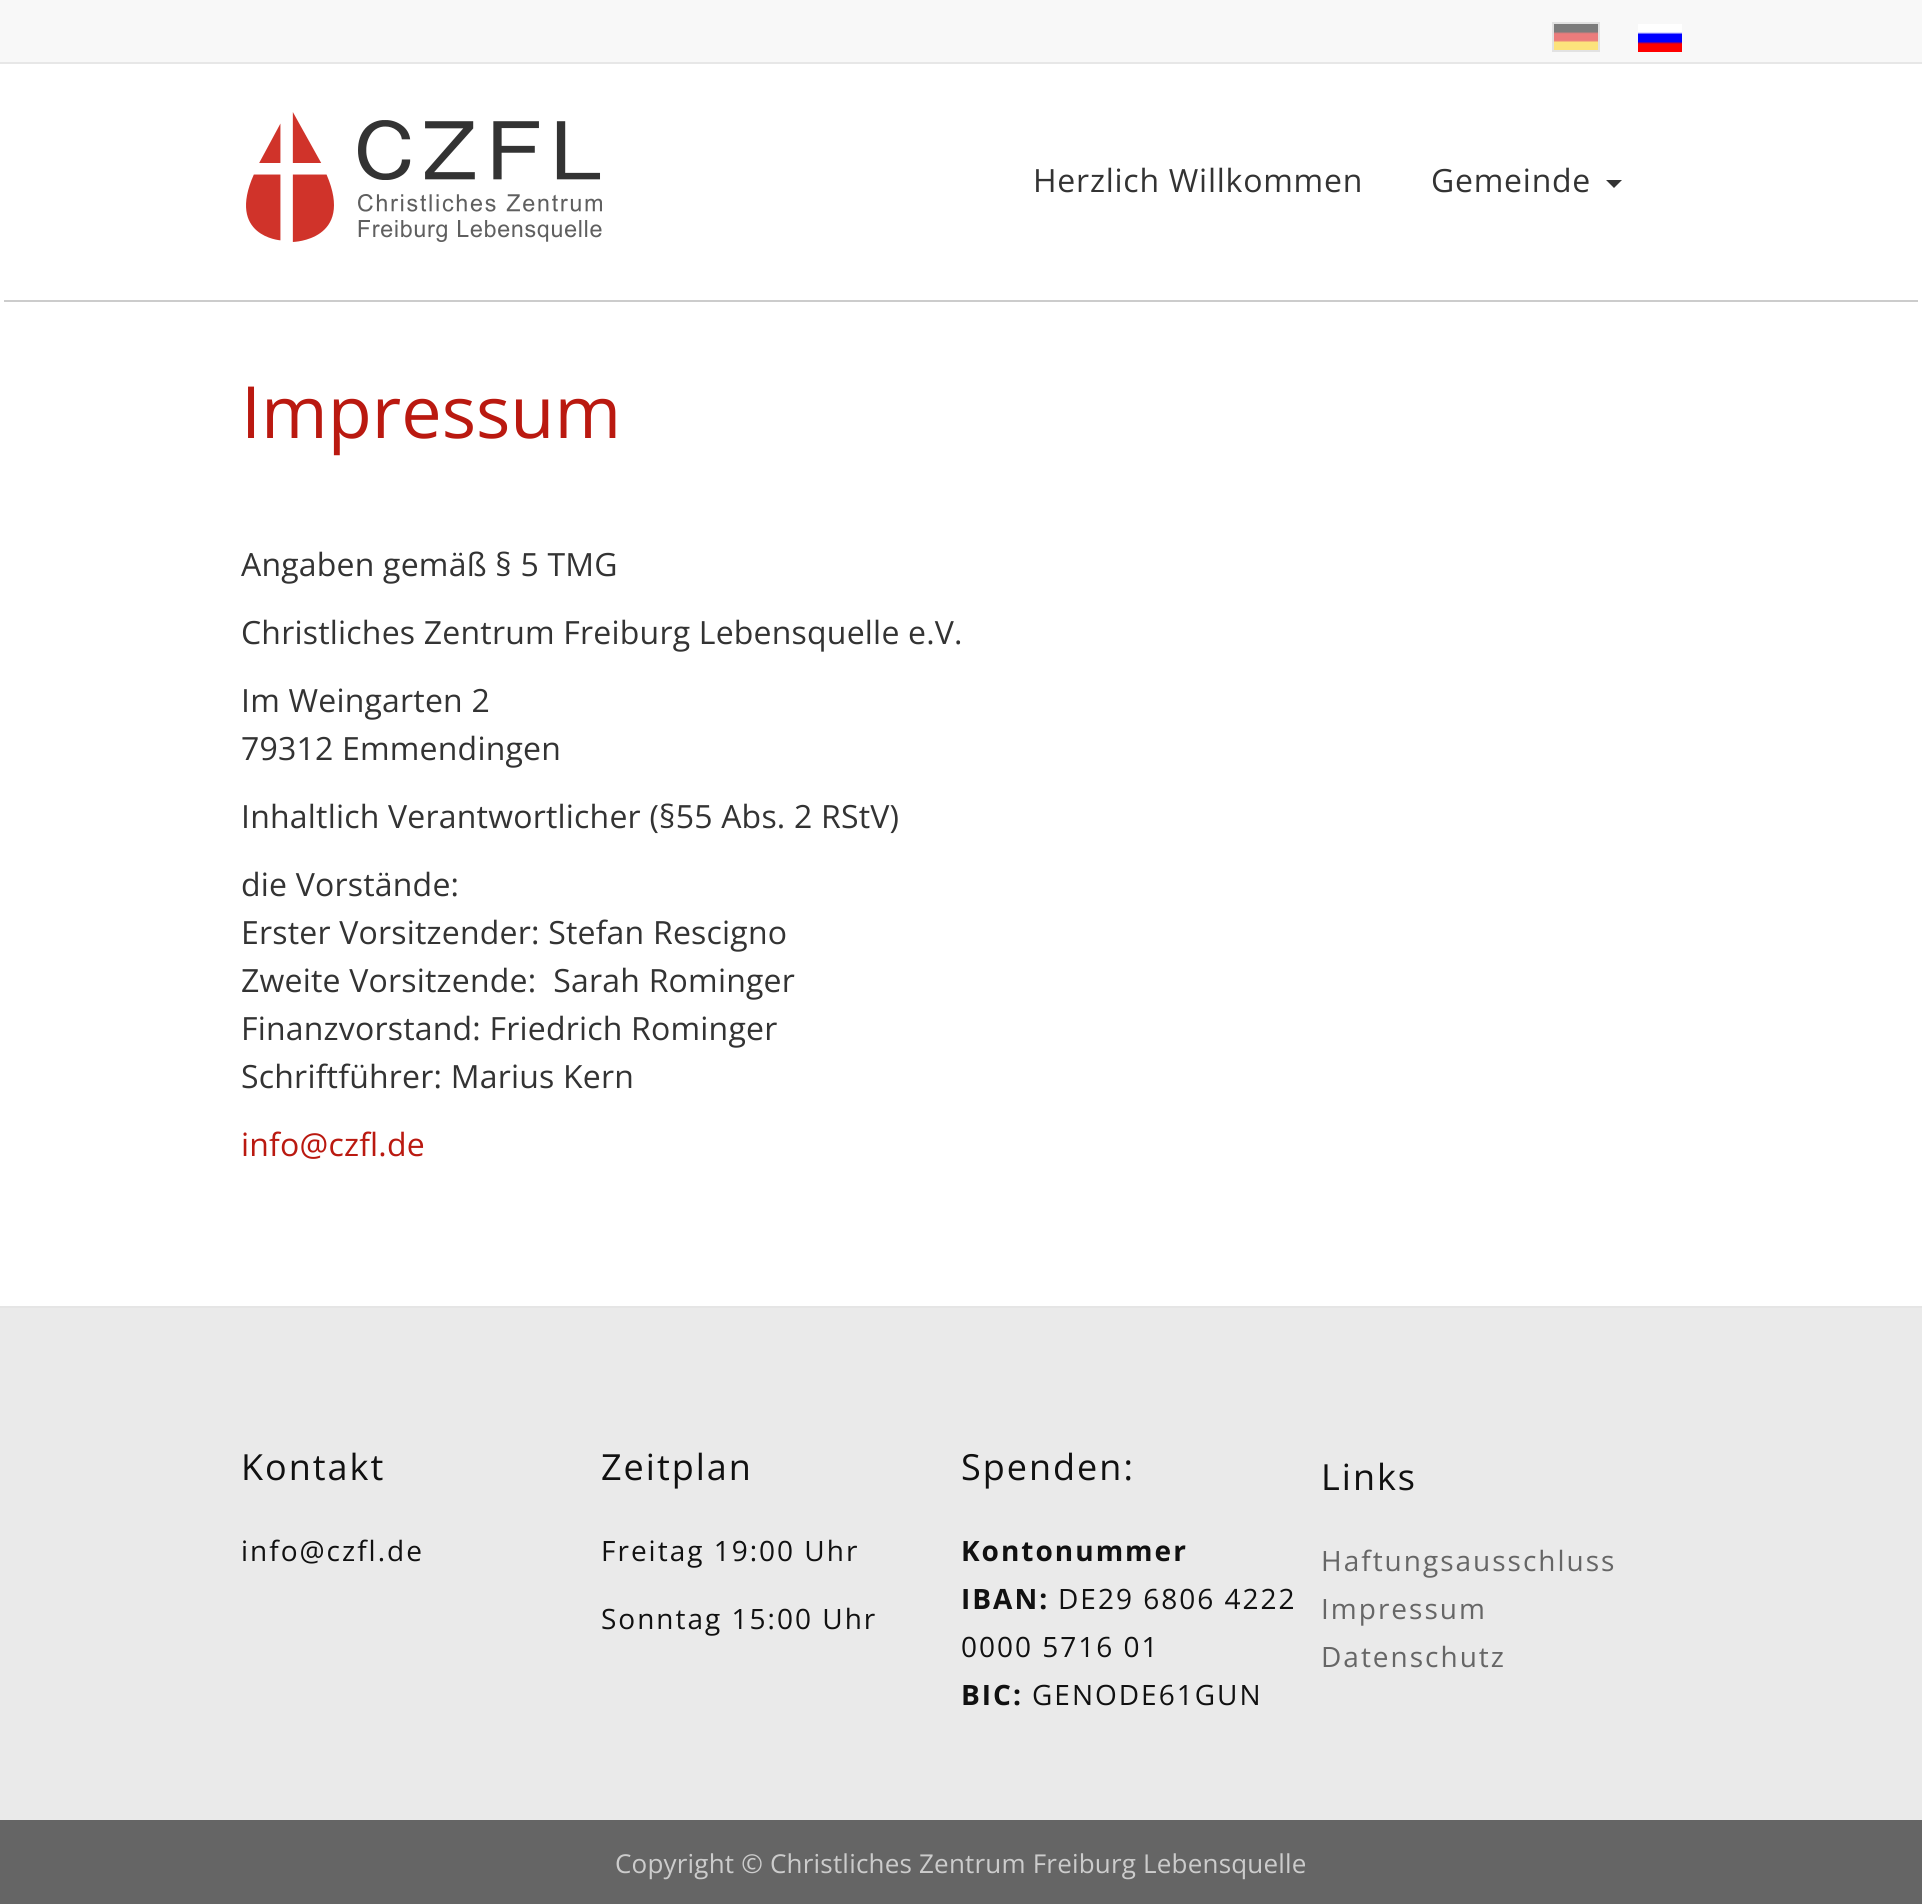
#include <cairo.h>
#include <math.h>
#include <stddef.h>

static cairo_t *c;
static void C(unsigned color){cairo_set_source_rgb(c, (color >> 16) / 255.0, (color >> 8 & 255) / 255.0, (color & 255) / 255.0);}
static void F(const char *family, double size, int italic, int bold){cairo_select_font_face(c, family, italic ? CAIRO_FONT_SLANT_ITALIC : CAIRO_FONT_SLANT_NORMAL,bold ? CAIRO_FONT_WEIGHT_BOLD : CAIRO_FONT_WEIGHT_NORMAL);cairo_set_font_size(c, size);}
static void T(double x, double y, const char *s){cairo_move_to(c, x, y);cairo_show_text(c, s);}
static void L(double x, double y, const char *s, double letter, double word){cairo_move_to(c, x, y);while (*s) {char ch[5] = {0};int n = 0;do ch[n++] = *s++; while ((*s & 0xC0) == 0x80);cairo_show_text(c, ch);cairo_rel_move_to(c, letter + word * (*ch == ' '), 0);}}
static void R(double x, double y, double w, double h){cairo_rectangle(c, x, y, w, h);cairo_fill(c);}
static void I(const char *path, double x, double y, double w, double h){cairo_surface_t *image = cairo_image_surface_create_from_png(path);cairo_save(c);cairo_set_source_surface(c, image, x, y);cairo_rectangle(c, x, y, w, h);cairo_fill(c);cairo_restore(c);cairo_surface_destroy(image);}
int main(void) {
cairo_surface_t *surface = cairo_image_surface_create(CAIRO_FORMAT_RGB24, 1922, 1904);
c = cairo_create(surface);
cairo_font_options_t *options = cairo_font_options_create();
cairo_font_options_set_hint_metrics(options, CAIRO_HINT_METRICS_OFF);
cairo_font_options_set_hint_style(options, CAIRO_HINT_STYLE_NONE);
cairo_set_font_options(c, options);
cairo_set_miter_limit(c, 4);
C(0xffffff);
cairo_paint(c);
C(0xf8f8f8);
R(0,0,1922,62);
C(0xe7e7e7);
R(0,62,1922,2);
cairo_rectangle(c,1553,23,46,28);
C(0xe2e2e2);
cairo_stroke(c);
I("1.png",1554,24,44,26);
I("2.png",1638,24,44,28);
C(0xcccccc);
R(4,300,1914,2);
I("3.png",246,112,356,130);
F("Open Sans",32,0,0);
C(0x333333);
L(1033,192,"Herzlich Willkommen",.75,0);
L(1431,192,"Gemeinde",.75,0);
cairo_new_path(c);
cairo_move_to(c,1606,180);
cairo_line_to(c,1622,180);
cairo_line_to(c,1614,188);
cairo_close_path(c);
cairo_fill(c);
F("Open Sans",72,0,0);
C(0xba1910);
T(241,438,"Impressum");
F("Open Sans",32,0,0);
C(0x333333);
L(241,576,"Angaben gemäß § 5 TMG",.2,0);
L(241,644,"Christliches Zentrum Freiburg Lebensquelle e.V.",.2,0);
L(241,712,"Im Weingarten 2",.2,0);
L(241,760,"79312 Emmendingen",.2,0);
L(241,828,"Inhaltlich Verantwortlicher (§55 Abs. 2 RStV)",.2,0);
L(241,896,"die Vorstände:",.2,0);
L(241,944,"Erster Vorsitzender: Stefan Rescigno",.2,0);
L(241,992,"Zweite Vorsitzende:  Sarah Rominger",.2,0);
L(241,1040,"Finanzvorstand: Friedrich Rominger",.2,0);
L(241,1088,"Schriftführer: Marius Kern",.2,0);
C(0xba1910);
L(241,1156,"info@czfl.de",.2,0);
C(0xeaeaea);
R(0,1308,1922,512);
C(0xe5e5e5);
R(0,1306,1922,2);
F("Open Sans",36,0,0);
C(0x111111);
L(241,1480,"Kontakt",2,0);
F("Open Sans",28,0,0);
L(241,1561,"info@czfl.de",2,0);
F("Open Sans",36,0,0);
L(601,1480,"Zeitplan",2,0);
F("Open Sans",28,0,0);
L(601,1561,"Freitag 19:00 Uhr",2,0);
L(601,1629,"Sonntag 15:00 Uhr",2,0);
F("Open Sans",36,0,0);
L(961,1480,"Spenden:",2,0);
F("Open Sans",28,0,1);
L(961,1561,"Kontonummer",2,0);
L(961,1609,"IBAN:",2,0);
F("Open Sans",28,0,0);
L(1058,1609,"DE29 6806 4222",2,0);
L(961,1657,"0000 5716 01",2,0);
F("Open Sans",28,0,1);
L(961,1705,"BIC:",2,0);
F("Open Sans",28,0,0);
L(1032,1705,"GENODE61GUN",2,0);
F("Open Sans",36,0,0);
L(1321,1490,"Links",2,0);
F("Open Sans",28,0,0);
C(0x666666);
L(1321,1571,"Haftungsausschluss",2,0);
L(1321,1619,"Impressum",2,0);
L(1321,1667,"Datenschutz",2,0);
C(0x656565);
R(0,1820,1922,84);
F("Open Sans",26,0,0);
C(0xcccccc);
L(615,1873,"Copyright © Christliches Zentrum Freiburg Lebensquelle",.2,0);
cairo_surface_write_to_png(surface, "o.png");
cairo_font_options_destroy(options);
cairo_destroy(c);
cairo_surface_destroy(surface);
return 0;
}
